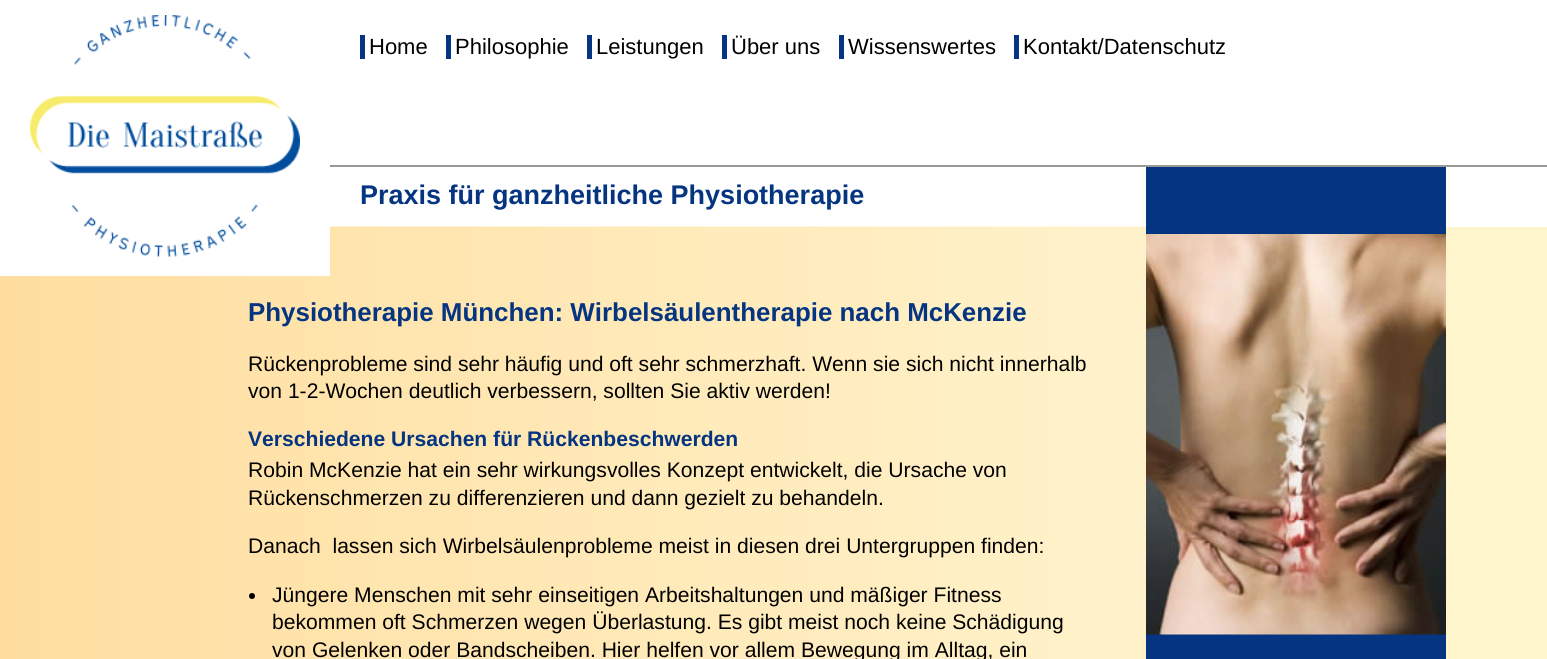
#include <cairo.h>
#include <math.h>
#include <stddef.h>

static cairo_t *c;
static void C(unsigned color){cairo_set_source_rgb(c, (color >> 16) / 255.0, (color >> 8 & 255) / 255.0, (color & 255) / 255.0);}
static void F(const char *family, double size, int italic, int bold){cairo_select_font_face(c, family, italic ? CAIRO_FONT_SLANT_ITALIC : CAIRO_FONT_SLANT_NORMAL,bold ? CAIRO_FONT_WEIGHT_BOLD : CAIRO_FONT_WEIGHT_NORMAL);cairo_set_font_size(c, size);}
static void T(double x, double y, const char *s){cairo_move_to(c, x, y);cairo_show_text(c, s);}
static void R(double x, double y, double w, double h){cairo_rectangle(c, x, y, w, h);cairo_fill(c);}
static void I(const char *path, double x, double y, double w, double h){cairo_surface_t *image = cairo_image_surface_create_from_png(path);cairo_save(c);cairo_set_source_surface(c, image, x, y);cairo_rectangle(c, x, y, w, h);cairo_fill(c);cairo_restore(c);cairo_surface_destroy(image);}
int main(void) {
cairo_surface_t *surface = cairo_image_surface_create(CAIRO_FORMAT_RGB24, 1547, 659);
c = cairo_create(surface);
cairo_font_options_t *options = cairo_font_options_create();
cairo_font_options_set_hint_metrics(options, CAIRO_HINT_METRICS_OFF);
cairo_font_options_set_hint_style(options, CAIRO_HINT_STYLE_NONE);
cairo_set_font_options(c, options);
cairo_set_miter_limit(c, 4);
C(0xffffff);
cairo_paint(c);
I("2.png",0,226,1146,433);
C(0xffffff);
R(0,226,330,50);
I("1.png",30,15,270,242);
C(0x053480);
R(360,35,5,24);
F("Liberation Sans",22,0,0);
C(0x000000);
T(369,54,"Home");
C(0x053480);
R(446,35,5,24);
C(0x000000);
T(455,54,"Philosophie");
C(0x053480);
R(587,35,5,24);
C(0x000000);
T(596,54,"Leistungen");
C(0x053480);
R(722,35,5,24);
C(0x000000);
T(731,54,"Über uns");
C(0x053480);
R(839,35,5,24);
C(0x000000);
T(848,54,"Wissenswertes");
C(0x053480);
R(1014,35,5,24);
C(0x000000);
T(1023,54,"Kontakt/Datenschutz");
F("Liberation Sans",27,0,1);
C(0x053480);
T(360,204,"Praxis für ganzheitliche Physiotherapie");
C(0x999999);
R(330,165,1217,2);
C(0xfff5cc);
R(1446,227,101,432);
F("Liberation Sans",25.9,0,1);
C(0x053480);
T(248,321,"Physiotherapie München: Wirbelsäulentherapie nach McKenzie");
F("Liberation Sans",21.1,0,0);
C(0x000000);
T(248,371,"Rückenprobleme sind sehr häufig und oft sehr schmerzhaft. Wenn sie sich nicht innerhalb");
T(248,398,"von 1-2-Wochen deutlich verbessern, sollten Sie aktiv werden!");
F("Liberation Sans",21.1,0,1);
C(0x053480);
T(248,446,"Verschiedene Ursachen für Rückenbeschwerden");
F("Liberation Sans",21.1,0,0);
C(0x000000);
T(248,477,"Robin McKenzie hat ein sehr wirkungsvolles Konzept entwickelt, die Ursache von");
T(248,505,"Rückenschmerzen zu differenzieren und dann gezielt zu behandeln.");
T(248,553,"Danach  lassen sich Wirbelsäulenprobleme meist in diesen drei Untergruppen finden:");
cairo_new_path(c);
cairo_arc(c,252,596,3,0,2 * M_PI);
cairo_fill(c);
T(272,602,"Jüngere Menschen mit sehr einseitigen Arbeitshaltungen und mäßiger Fitness");
T(272,629,"bekommen oft Schmerzen wegen Überlastung. Es gibt meist noch keine Schädigung");
T(272,657,"von Gelenken oder Bandscheiben. Hier helfen vor allem Bewegung im Alltag, ein");
C(0x053480);
R(1146,167,300,492);
I("3.png",1146,234,300,401);
cairo_surface_write_to_png(surface, "o.png");
cairo_font_options_destroy(options);
cairo_destroy(c);
cairo_surface_destroy(surface);
return 0;
}
